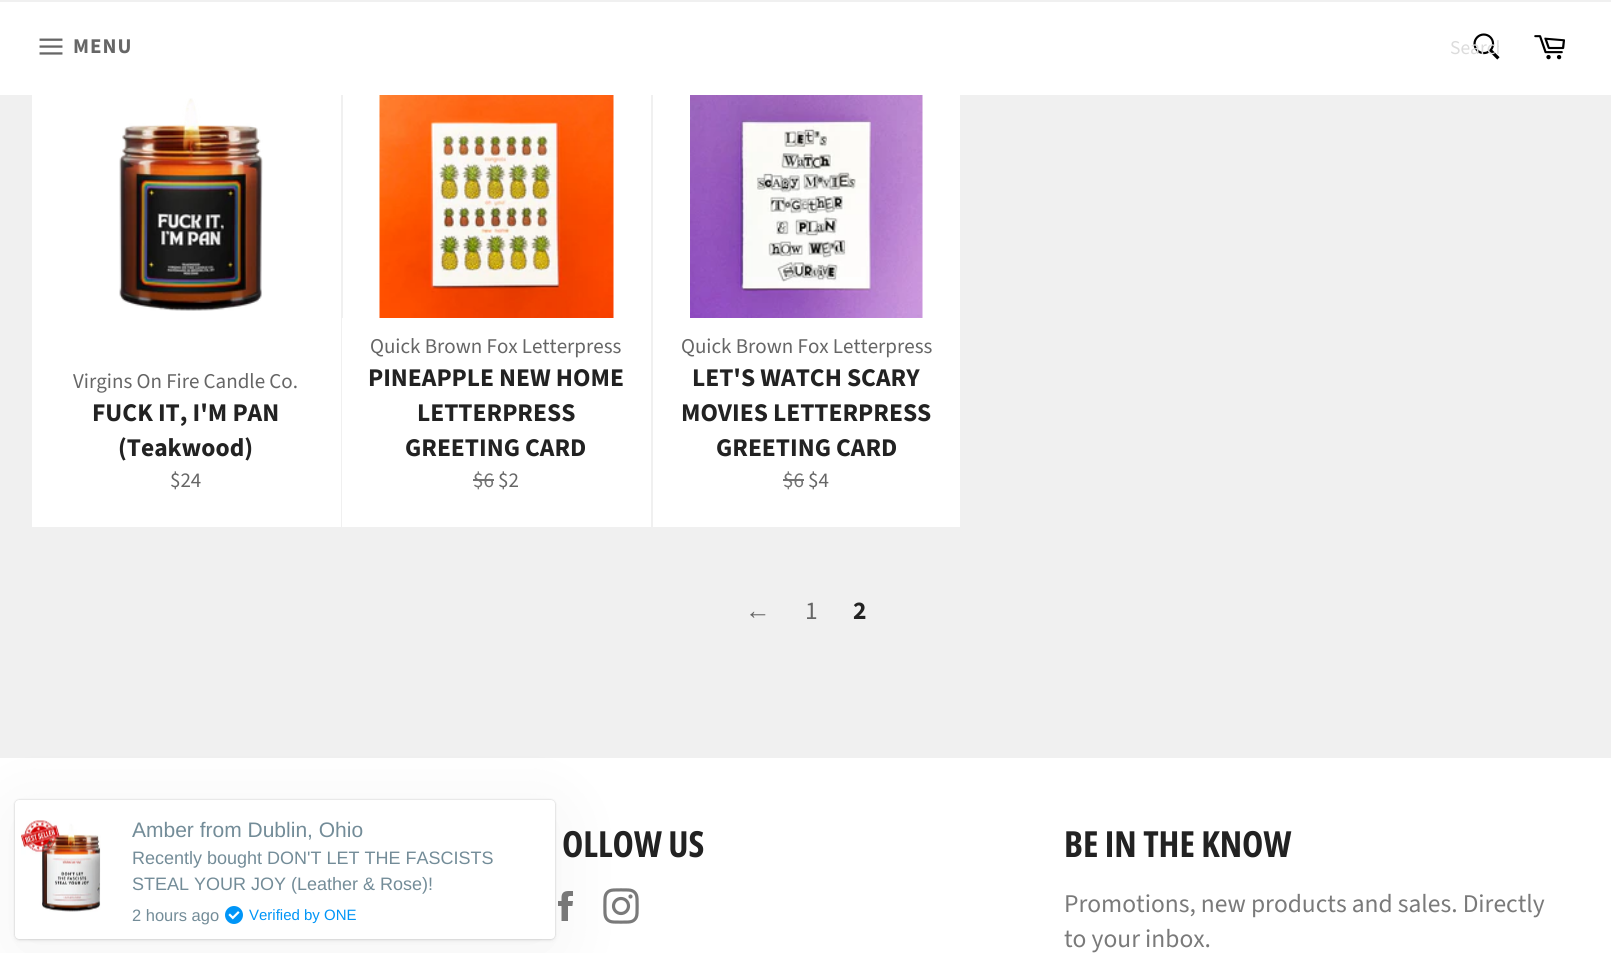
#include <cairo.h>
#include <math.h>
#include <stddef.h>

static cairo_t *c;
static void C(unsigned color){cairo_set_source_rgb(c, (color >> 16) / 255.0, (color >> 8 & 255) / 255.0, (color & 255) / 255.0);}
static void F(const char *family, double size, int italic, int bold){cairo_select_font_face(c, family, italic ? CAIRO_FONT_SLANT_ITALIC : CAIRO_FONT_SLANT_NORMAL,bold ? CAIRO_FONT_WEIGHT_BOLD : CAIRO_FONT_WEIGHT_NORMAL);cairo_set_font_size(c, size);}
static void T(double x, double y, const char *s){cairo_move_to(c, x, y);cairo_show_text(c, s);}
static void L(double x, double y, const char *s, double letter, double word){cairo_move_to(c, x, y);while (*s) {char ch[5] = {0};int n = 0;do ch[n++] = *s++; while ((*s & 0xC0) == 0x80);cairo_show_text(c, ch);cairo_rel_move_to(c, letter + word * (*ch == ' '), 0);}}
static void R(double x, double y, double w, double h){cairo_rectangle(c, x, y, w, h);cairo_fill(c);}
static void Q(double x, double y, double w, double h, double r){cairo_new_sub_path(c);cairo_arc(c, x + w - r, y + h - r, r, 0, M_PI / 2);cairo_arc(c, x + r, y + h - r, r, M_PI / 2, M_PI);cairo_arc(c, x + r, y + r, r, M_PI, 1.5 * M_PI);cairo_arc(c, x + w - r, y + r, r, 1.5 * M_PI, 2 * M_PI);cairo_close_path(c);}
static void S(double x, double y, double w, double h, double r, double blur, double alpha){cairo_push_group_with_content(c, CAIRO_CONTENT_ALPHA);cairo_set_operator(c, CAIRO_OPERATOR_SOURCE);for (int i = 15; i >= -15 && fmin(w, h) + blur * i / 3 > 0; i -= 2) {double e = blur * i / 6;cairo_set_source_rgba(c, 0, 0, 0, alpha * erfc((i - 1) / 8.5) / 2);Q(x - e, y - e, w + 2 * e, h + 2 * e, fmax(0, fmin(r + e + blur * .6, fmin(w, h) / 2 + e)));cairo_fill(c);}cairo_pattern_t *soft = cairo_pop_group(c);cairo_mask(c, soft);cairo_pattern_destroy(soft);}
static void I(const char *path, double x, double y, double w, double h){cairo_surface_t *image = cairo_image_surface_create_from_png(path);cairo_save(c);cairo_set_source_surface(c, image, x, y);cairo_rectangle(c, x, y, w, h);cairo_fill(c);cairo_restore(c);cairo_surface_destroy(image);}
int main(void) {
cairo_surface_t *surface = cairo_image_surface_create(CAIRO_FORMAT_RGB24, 1611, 953);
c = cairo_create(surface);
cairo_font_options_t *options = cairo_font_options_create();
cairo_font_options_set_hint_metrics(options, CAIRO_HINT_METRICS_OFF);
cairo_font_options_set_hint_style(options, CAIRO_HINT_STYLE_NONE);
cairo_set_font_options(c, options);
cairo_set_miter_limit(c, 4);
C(0xf0f0f0);
cairo_paint(c);
C(0xffffff);
R(0,2,1611,93);
I("1.png",39,38,24,17);
F("Source Sans Pro",21,0,1);
C(0x666666);
L(73,53,"MENU",1,0);
I("2.png",1473,33,27,27);
cairo_save(c);
cairo_rectangle(c,1451,35,48,27);
cairo_clip(c);
F("Source Sans Pro",19.5,0,0);
C(0xdcdcdc);
T(1450,54,"Search");
cairo_restore(c);
I("3.png",1534,35,31,25);
C(0xffffff);
R(32,95,309,432);
I("4.png",119,98,144,213);
F("Source Sans Pro",21,0,0);
C(0x666666);
T(73,388,"Virgins On Fire Candle Co.");
F("Source Sans Pro",25.5,0,1);
C(0x222222);
T(92,421,"FUCK IT, I'M PAN");
T(118,456,"(Teakwood)");
F("Source Sans Pro",21,0,0);
C(0x666666);
T(170,487,"$24");
C(0xffffff);
R(343,95,308,223);
I("5.png",379,95,235,223);
R(342,318,309,209);
C(0x666666);
T(370,353,"Quick Brown Fox Letterpress");
F("Source Sans Pro",25.5,0,1);
C(0x222222);
T(368,386,"PINEAPPLE NEW HOME");
T(417,421,"LETTERPRESS");
T(405,456,"GREETING CARD");
F("Source Sans Pro",21,0,0);
C(0x737373);
T(473,487,"$6");
R(473,479,21,2);
C(0x666666);
T(498,487,"$2");
C(0xffffff);
R(653,95,307,432);
I("6.png",690,95,233,223);
C(0x666666);
T(681,353,"Quick Brown Fox Letterpress");
F("Source Sans Pro",25.5,0,1);
C(0x222222);
T(692,386,"LET'S WATCH SCARY");
T(681,421,"MOVIES LETTERPRESS");
T(716,456,"GREETING CARD");
F("Source Sans Pro",21,0,0);
C(0x737373);
T(783,487,"$6");
R(783,479,21,2);
C(0x666666);
T(808,487,"$4");
F("Liberation Sans",25.5,0,0);
T(745,619,"←");
F("Source Sans Pro",25.5,0,0);
T(805,619,"1");
F("Source Sans Pro",25.5,0,1);
C(0x222222);
T(853,619,"2");
C(0xffffff);
R(0,758,1611,195);
F("Open Sans Condensed",36,0,1);
C(0x222222);
T(562,857,"OLLOW US");
I("7.png",558,891,15,30);
I("8.png",603,888,36,36);
T(1064,857,"BE IN THE KNOW");
F("Source Sans Pro",25.5,0,0);
C(0x7a7a7a);
T(1064,912,"Promotions, new products and sales. Directly");
T(1064,947,"to your inbox.");
C(0x000000);
S(15,812,540,139,4,37.5,.05);
S(15,801,540,140,4,1.5,.05);
S(15,800,540,139,4,1,.2);
C(0xffffff);
Q(15,800,540,139,4);
cairo_fill(c);
I("9.png",21,820,80,92);
F("Liberation Sans",21,0,0);
C(0x738c98);
T(132,837,"Amber from Dublin, Ohio");
F("Liberation Sans",18,0,0);
T(132,864,"Recently bought DON'T LET THE FASCISTS");
T(132,890,"STEAL YOUR JOY (Leather & Rose)!");
F("Liberation Sans",16.5,0,0);
T(132,921,"2 hours ago");
I("10.png",225,906,18,18);
F("Liberation Sans",15,0,0);
C(0x0095f7);
T(249,920,"Verified by ONE");
cairo_surface_write_to_png(surface, "o.png");
cairo_font_options_destroy(options);
cairo_destroy(c);
cairo_surface_destroy(surface);
return 0;
}
